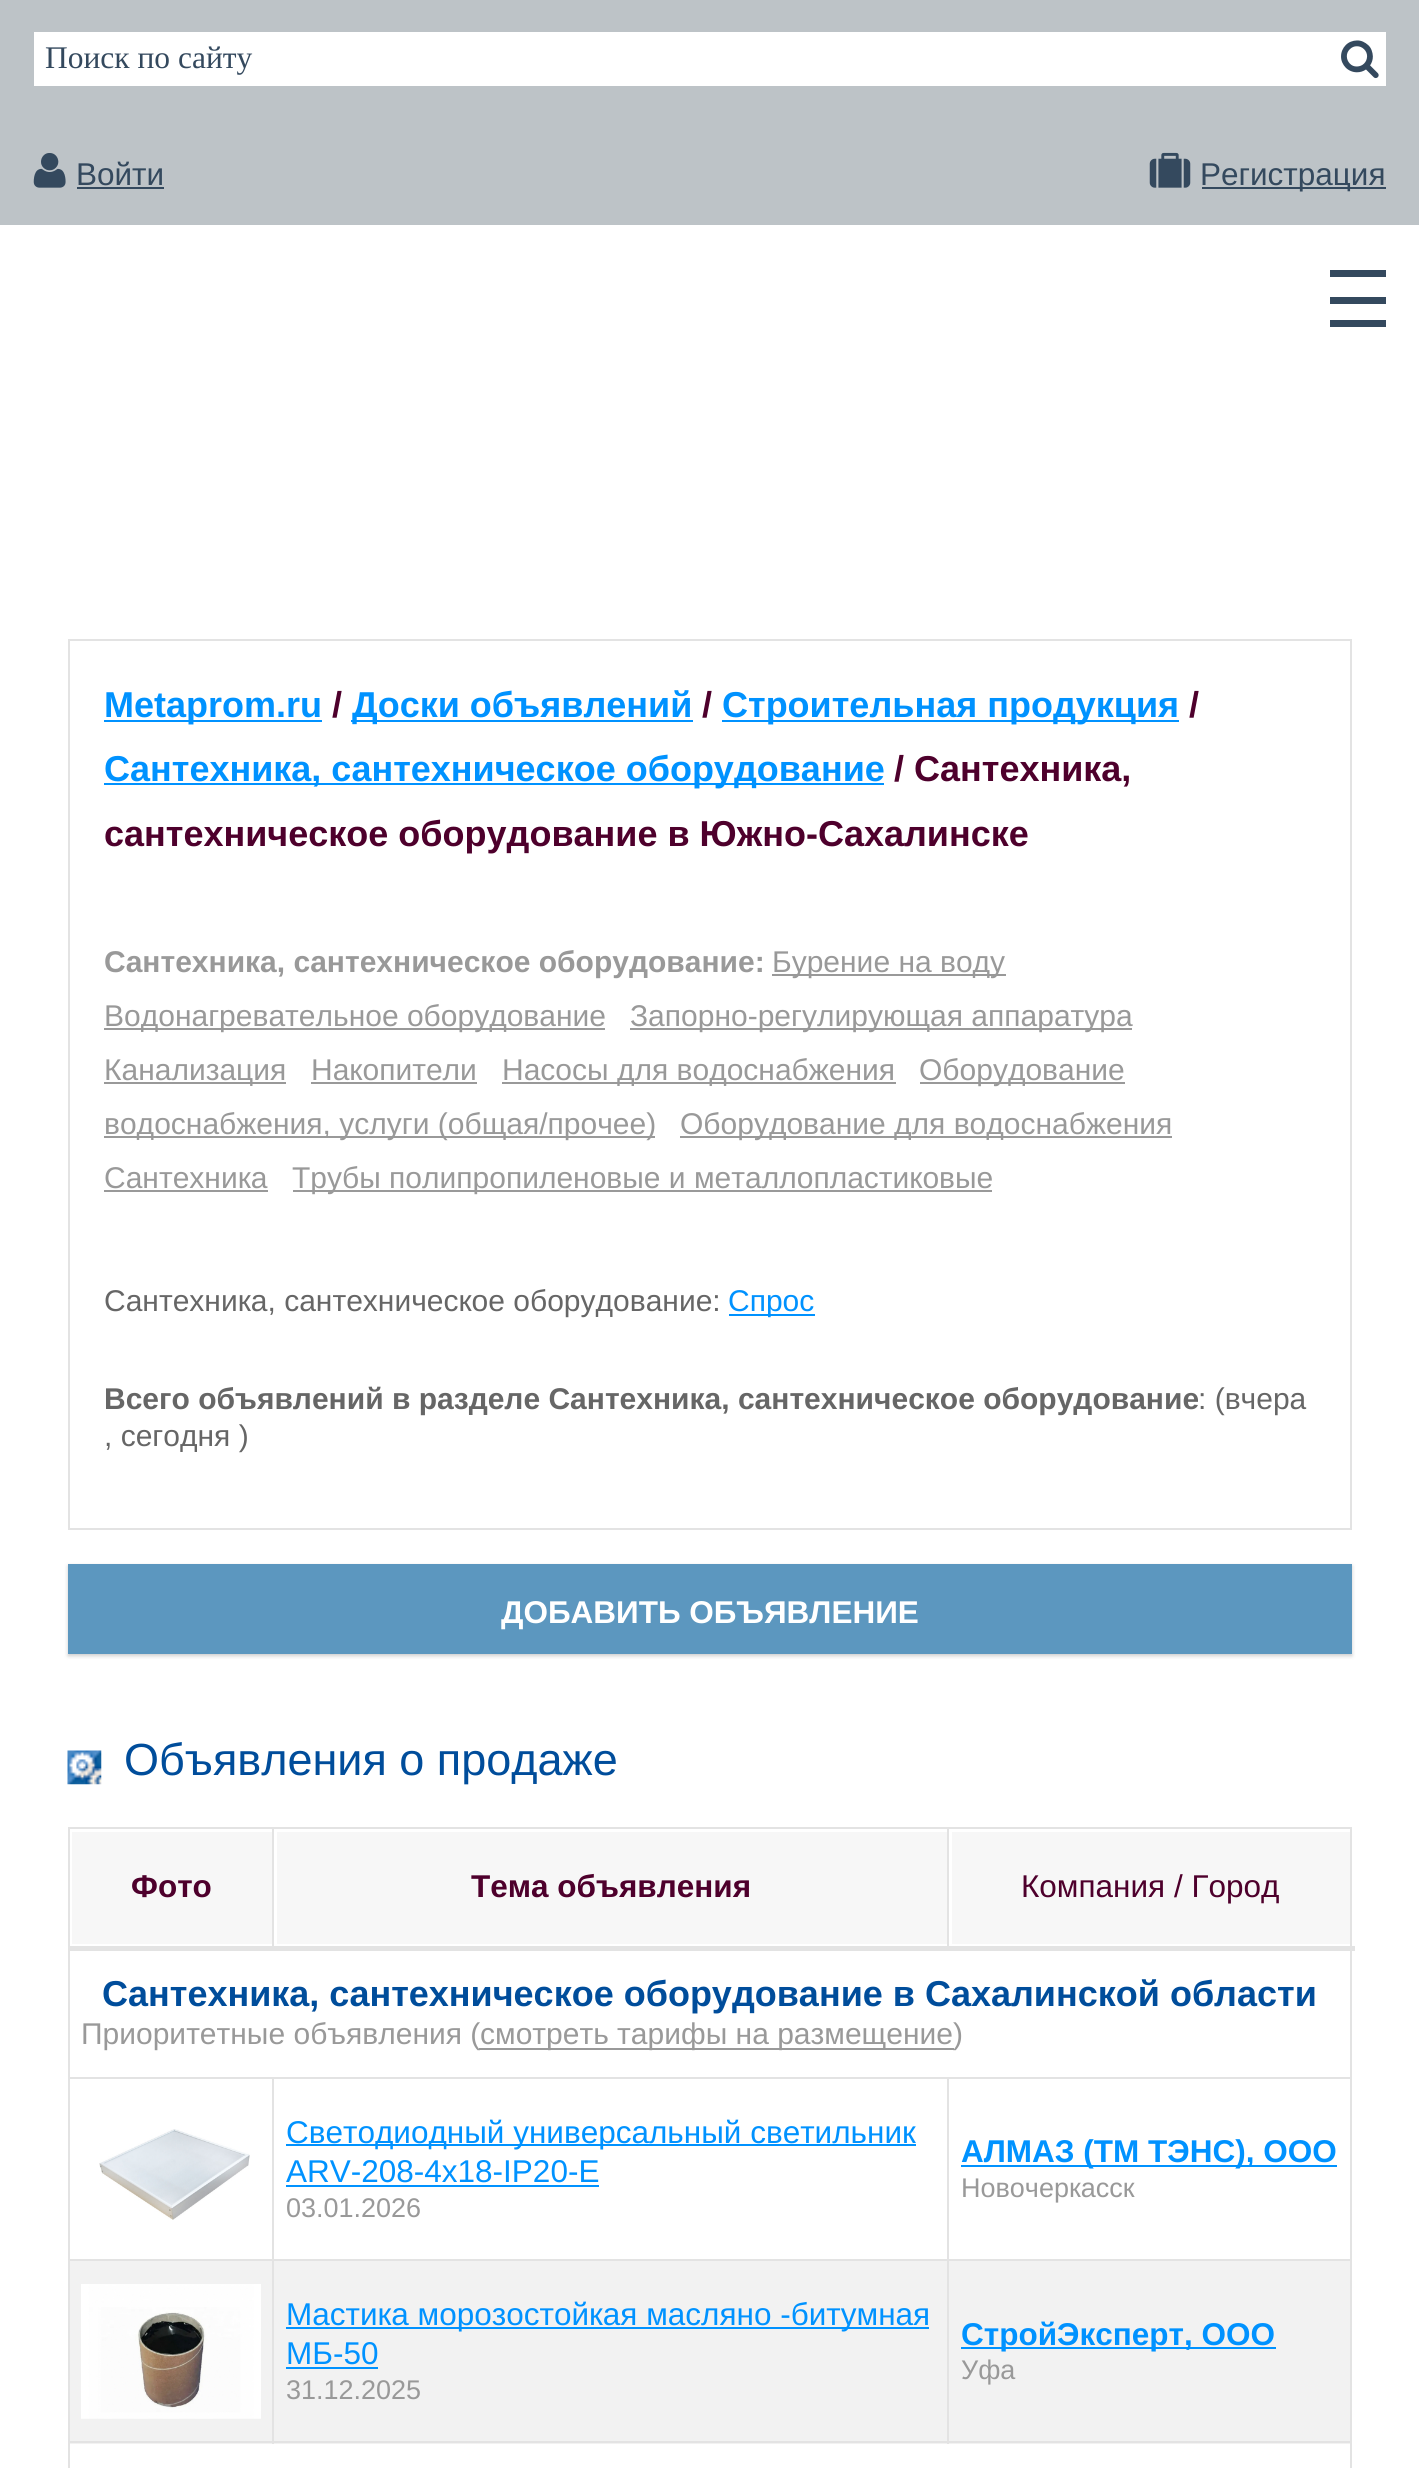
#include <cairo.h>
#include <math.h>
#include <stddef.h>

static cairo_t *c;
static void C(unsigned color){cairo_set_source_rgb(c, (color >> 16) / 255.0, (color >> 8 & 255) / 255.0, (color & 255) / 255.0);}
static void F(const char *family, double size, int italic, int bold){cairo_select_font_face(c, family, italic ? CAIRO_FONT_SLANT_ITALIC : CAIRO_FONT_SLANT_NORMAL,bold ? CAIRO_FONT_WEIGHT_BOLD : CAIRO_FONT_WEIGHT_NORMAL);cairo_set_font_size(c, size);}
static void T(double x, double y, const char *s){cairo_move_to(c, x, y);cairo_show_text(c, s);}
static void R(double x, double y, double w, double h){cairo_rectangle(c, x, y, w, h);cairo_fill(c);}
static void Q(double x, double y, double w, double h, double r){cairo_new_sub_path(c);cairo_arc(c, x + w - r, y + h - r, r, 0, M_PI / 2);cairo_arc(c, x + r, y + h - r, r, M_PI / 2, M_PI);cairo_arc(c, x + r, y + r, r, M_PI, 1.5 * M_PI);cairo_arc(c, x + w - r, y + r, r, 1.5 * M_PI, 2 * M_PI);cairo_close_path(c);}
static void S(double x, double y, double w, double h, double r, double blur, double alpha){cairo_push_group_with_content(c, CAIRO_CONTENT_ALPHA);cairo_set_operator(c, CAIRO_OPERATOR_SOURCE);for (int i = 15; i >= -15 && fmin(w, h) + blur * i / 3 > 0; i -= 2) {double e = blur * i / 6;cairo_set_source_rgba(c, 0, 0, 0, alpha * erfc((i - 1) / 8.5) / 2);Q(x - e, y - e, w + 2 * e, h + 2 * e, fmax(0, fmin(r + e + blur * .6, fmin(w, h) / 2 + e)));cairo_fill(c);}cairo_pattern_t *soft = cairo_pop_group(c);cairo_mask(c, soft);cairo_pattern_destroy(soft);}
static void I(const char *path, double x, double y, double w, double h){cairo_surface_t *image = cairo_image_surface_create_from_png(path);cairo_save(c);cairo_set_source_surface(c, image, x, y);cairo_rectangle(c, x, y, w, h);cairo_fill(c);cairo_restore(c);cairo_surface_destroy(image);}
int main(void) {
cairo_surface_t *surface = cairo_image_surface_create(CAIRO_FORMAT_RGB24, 1419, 2468);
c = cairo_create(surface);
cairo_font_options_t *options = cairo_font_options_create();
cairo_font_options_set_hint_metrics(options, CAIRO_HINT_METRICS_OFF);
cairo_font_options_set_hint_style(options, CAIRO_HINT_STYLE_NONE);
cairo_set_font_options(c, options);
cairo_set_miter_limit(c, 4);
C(0xffffff);
cairo_paint(c);
C(0xbdc3c7);
R(0,0,1419,225);
C(0xffffff);
R(34,32,1352,54);
F("Liberation Serif",31.5,0,0);
C(0x34495e);
T(45,68,"Поиск по сайту");
I("1.png",1341,40,38,39);
I("2.png",33,153,33,35);
F("Liberation Sans",31.5,0,0);
T(76,185,"Войти");
R(77,187,87,2);
I("3.png",1149,152,42,36);
R(1202,187,184,2);
T(1200,185,"Регистрация");
R(1330,270,56,7);
R(1330,320,56,7);
R(1330,297,56,7);
cairo_rectangle(c,69,640,1282,889);
C(0xe3e3e3);
cairo_stroke(c);
C(0x0092ff);
R(104,720,218,2);
F("Liberation Sans",36,0,1);
T(104,717,"Metaprom.ru");
C(0x4e002c);
T(332,717,"/");
C(0x0092ff);
R(351,720,342,2);
T(352,717,"Доски объявлений");
C(0x4e002c);
T(702,717,"/");
C(0x0092ff);
R(722,720,457,2);
T(722,717,"Строительная продукция");
C(0x4e002c);
T(1189,717,"/");
C(0x0092ff);
R(104,783,780,2);
T(104,781,"Сантехника, сантехническое оборудование");
C(0x4e002c);
T(894,781,"/ Сантехника,");
T(104,846,"сантехническое оборудование в Южно-Сахалинске");
F("Liberation Sans",30,0,1);
C(0x999999);
T(104,972,"Сантехника, сантехническое оборудование:");
R(772,974,234,2);
F("Liberation Sans",30,0,0);
T(772,972,"Бурение на воду");
R(104,1028,501,2);
T(104,1026,"Водонагревательное оборудование");
R(630,1028,502,2);
T(630,1026,"Запорно-регулирующая аппаратура");
R(104,1082,182,2);
T(104,1080,"Канализация");
T(311,1080,"Накопители");
R(311,1082,166,2);
R(502,1082,394,2);
T(502,1080,"Насосы для водоснабжения");
R(920,1082,205,2);
T(919,1080,"Оборудование");
R(104,1136,551,2);
T(104,1134,"водоснабжения, услуги (общая/прочее)");
R(680,1136,492,2);
T(680,1134,"Оборудование для водоснабжения");
T(104,1188,"Сантехника");
R(104,1190,164,2);
R(293,1190,699,2);
T(292,1188,"Трубы полипропиленовые и металлопластиковые");
C(0x666666);
T(104,1311,"Сантехника, сантехническое оборудование:");
C(0x0092ff);
R(729,1314,86,2);
T(728,1311,"Спрос");
F("Liberation Sans",30,0,1);
C(0x666666);
T(104,1409,"Всего объявлений в разделе Сантехника, сантехническое оборудование");
F("Liberation Sans",30,0,0);
T(1198,1409,": (вчера");
T(104,1446,", сегодня )");
C(0x000000);
S(68,1566,1284,90,0,2,.2);
C(0x5c97bf);
R(68,1564,1284,90);
F("Liberation Sans",31.5,0,1);
C(0xffffff);
T(501,1623,"ДОБАВИТЬ ОБЪЯВЛЕНИЕ");
I("4.png",67,1750,35,35);
F("Liberation Sans",45,0,0);
C(0x004d9b);
T(124,1775,"Объявления о продаже");
C(0xf7f7f7);
R(72,1832,200,112);
C(0xe3e3e3);
R(947,1827,405,2);
R(947,1827,2,122);
R(272,1827,678,2);
R(272,1827,2,122);
R(68,1827,207,2);
R(947,2077,405,2);
R(947,2259,405,2);
C(0xf2f2f2);
R(70,2261,1280,183);
C(0xe3e3e3);
R(68,2441,1284,2);
R(947,2259,2,185);
R(272,2259,678,2);
R(947,2077,2,184);
R(272,2077,678,2);
R(272,2259,2,185);
R(68,2259,207,2);
R(272,2077,2,184);
R(68,2077,207,2);
R(68,2441,2,27);
R(68,2259,2,185);
R(68,1946,2,315);
R(68,1827,2,122);
F("Liberation Sans",31.5,0,1);
C(0x4e002c);
T(131,1897,"Фото");
C(0xf7f7f7);
R(277,1832,670,112);
C(0x4e002c);
T(471,1897,"Тема объявления");
C(0xf7f7f7);
R(952,1832,398,112);
C(0xe3e3e3);
R(1350,2441,2,27);
R(1350,2259,2,185);
R(1350,1946,2,315);
R(1350,1827,2,122);
R(68,1946,1287,5);
F("Liberation Sans",31.5,0,0);
C(0x4e002c);
T(1021,1897,"Компания / Город");
F("Liberation Sans",36,0,1);
C(0x004d9b);
T(102,2006,"Сантехника, сантехническое оборудование в Сахалинской области");
F("Liberation Sans",30,0,0);
C(0x999999);
T(81,2044,"Приоритетные объявления (");
R(479,2048,475,2);
T(480,2044,"смотреть тарифы на размещение)");
I("5.png",99,2129,151,91);
C(0x0092ff);
R(286,2144,630,2);
F("Liberation Sans",31.5,0,0);
T(286,2143,"Светодиодный универсальный светильник");
T(286,2182,"ARV-208-4x18-IP20-E");
R(286,2185,313,2);
F("Liberation Sans",27,0,0);
C(0x999999);
T(286,2217,"03.01.2026");
C(0x0092ff);
R(961,2165,376,2);
F("Liberation Sans",31.5,0,1);
T(961,2162,"АЛМАЗ (ТМ ТЭНС), ООО");
F("Liberation Sans",27,0,0);
C(0x999999);
T(961,2197,"Новочеркасск");
I("6.png",81,2284,180,135);
C(0x0092ff);
R(286,2327,643,2);
F("Liberation Sans",31.5,0,0);
T(286,2325,"Мастика морозостойкая масляно -битумная");
T(286,2364,"МБ-50");
R(286,2367,92,2);
F("Liberation Sans",27,0,0);
C(0x999999);
T(286,2399,"31.12.2025");
C(0x0092ff);
R(961,2347,315,2);
F("Liberation Sans",31.5,0,1);
T(961,2345,"СтройЭксперт, ООО");
F("Liberation Sans",27,0,0);
C(0x999999);
T(961,2379,"Уфа");
cairo_surface_write_to_png(surface, "o.png");
cairo_font_options_destroy(options);
cairo_destroy(c);
cairo_surface_destroy(surface);
return 0;
}
